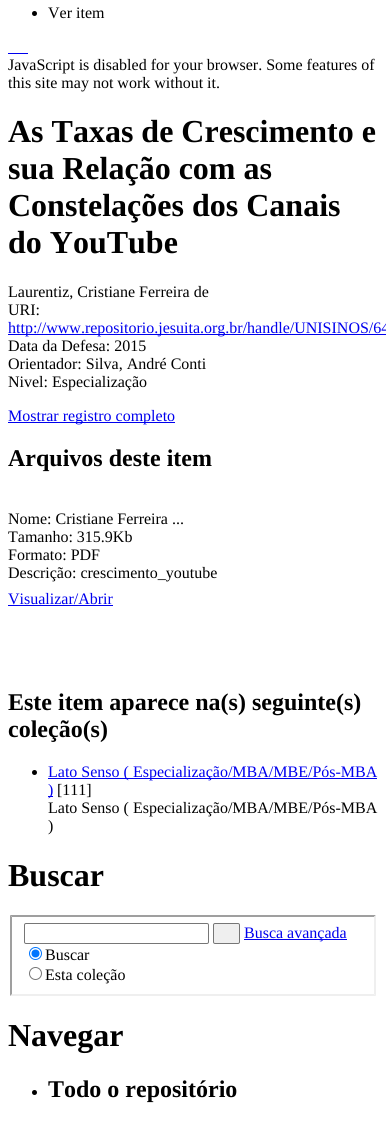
#include <cairo.h>
#include <math.h>
#include <stddef.h>

static cairo_t *c;
static void C(unsigned color){cairo_set_source_rgb(c, (color >> 16) / 255.0, (color >> 8 & 255) / 255.0, (color & 255) / 255.0);}
static void F(const char *family, double size, int italic, int bold){cairo_select_font_face(c, family, italic ? CAIRO_FONT_SLANT_ITALIC : CAIRO_FONT_SLANT_NORMAL,bold ? CAIRO_FONT_WEIGHT_BOLD : CAIRO_FONT_WEIGHT_NORMAL);cairo_set_font_size(c, size);}
static void T(double x, double y, const char *s){cairo_move_to(c, x, y);cairo_show_text(c, s);}
static void R(double x, double y, double w, double h){cairo_rectangle(c, x, y, w, h);cairo_fill(c);}
static void Q(double x, double y, double w, double h, double r){cairo_new_sub_path(c);cairo_arc(c, x + w - r, y + h - r, r, 0, M_PI / 2);cairo_arc(c, x + r, y + h - r, r, M_PI / 2, M_PI);cairo_arc(c, x + r, y + r, r, M_PI, 1.5 * M_PI);cairo_arc(c, x + w - r, y + r, r, 1.5 * M_PI, 2 * M_PI);cairo_close_path(c);}
int main(void) {
cairo_surface_t *surface = cairo_image_surface_create(CAIRO_FORMAT_RGB24, 386, 1124);
c = cairo_create(surface);
cairo_font_options_t *options = cairo_font_options_create();
cairo_font_options_set_hint_metrics(options, CAIRO_HINT_METRICS_OFF);
cairo_font_options_set_hint_style(options, CAIRO_HINT_STYLE_NONE);
cairo_set_font_options(c, options);
cairo_set_miter_limit(c, 4);
C(0xffffff);
cairo_paint(c);
C(0x000000);
cairo_arc(c,34.5,13.5,2.5,0,2 * M_PI);
cairo_fill(c);
F("Liberation Serif",16,0,0);
T(48,18,"Ver item");
C(0x0000ee);
R(8,53,20,1);
C(0x000000);
T(8,70,"JavaScript is disabled for your browser. Some features of");
T(8,88,"this site may not work without it.");
F("Liberation Serif",32,0,1);
T(8,142,"As Taxas de Crescimento e");
T(8,179,"sua Relação com as");
T(8,216,"Constelações dos Canais");
T(8,253,"do YouTube");
F("Liberation Serif",16,0,0);
T(8,297,"Laurentiz, Cristiane Ferreira de");
T(8,315,"URI:");
C(0x0000ee);
R(8,334,378,1);
T(8,333,"http://www.repositorio.jesuita.org.br/handle/UNISINOS/64");
C(0x000000);
T(8,351,"Data da Defesa: 2015");
T(8,369,"Orientador: Silva, André Conti");
T(8,387,"Nivel: Especialização");
C(0x0000ee);
R(8,422,167,1);
T(8,421,"Mostrar registro completo");
F("Liberation Serif",24,0,1);
C(0x000000);
T(8,466,"Arquivos deste item");
F("Liberation Serif",16,0,0);
T(8,524,"Nome: Cristiane Ferreira ...");
T(8,542,"Tamanho: 315.9Kb");
T(8,560,"Formato: PDF");
T(8,578,"Descrição: crescimento_youtube");
C(0x0000ee);
T(8,604,"Visualizar/Abrir");
R(8,605,105,1);
F("Liberation Serif",24,0,1);
C(0x000000);
T(8,710,"Este item aparece na(s) seguinte(s)");
T(8,737,"coleção(s)");
cairo_new_path(c);
cairo_arc(c,34.5,772.5,2.5,0,2 * M_PI);
cairo_fill(c);
C(0x0000ee);
R(48,778,329,1);
F("Liberation Serif",16,0,0);
T(48,777,"Lato Senso ( Especialização/MBA/MBE/Pós-MBA");
R(48,796,5,1);
T(48,795,")");
C(0x000000);
T(57,795,"[111]");
T(48,813,"Lato Senso ( Especialização/MBA/MBE/Pós-MBA");
T(48,831,")");
F("Liberation Serif",32,0,1);
T(8,886,"Buscar");
C(0x9f9f9f);
cairo_new_path(c);
cairo_move_to(c,10,915);
cairo_line_to(c,376,915);
cairo_line_to(c,374,917);
cairo_line_to(c,12,917);
cairo_close_path(c);
cairo_fill(c);
C(0xefefef);
cairo_new_path(c);
cairo_move_to(c,376,915);
cairo_line_to(c,376,996);
cairo_line_to(c,374,994);
cairo_line_to(c,374,917);
cairo_close_path(c);
cairo_fill(c);
cairo_new_path(c);
cairo_move_to(c,376,996);
cairo_line_to(c,10,996);
cairo_line_to(c,12,994);
cairo_line_to(c,374,994);
cairo_close_path(c);
cairo_fill(c);
C(0x9f9f9f);
cairo_new_path(c);
cairo_move_to(c,10,996);
cairo_line_to(c,10,915);
cairo_line_to(c,12,917);
cairo_line_to(c,12,994);
cairo_close_path(c);
cairo_fill(c);
Q(24.5,923.5,184,20,1.5);
C(0x767676);
cairo_set_line_width(c,1);
cairo_stroke(c);
C(0xefefef);
Q(213.5,923.5,26,20,1.5);
cairo_fill_preserve(c);
C(0x767676);
cairo_stroke(c);
C(0x0000ee);
R(244,939,103,1);
F("Liberation Serif",16,0,0);
T(244,938,"Busca avançada");
cairo_new_path(c);
cairo_arc(c,35.5,953.5,6,0,2 * M_PI);
C(0x0075ff);
cairo_stroke(c);
cairo_arc(c,35.5,953.5,4,0,2 * M_PI);
cairo_fill(c);
C(0x000000);
T(45,960,"Buscar");
cairo_new_path(c);
cairo_arc(c,35.5,973.5,6,0,2 * M_PI);
C(0x767676);
cairo_stroke(c);
C(0x000000);
T(45,980,"Esta coleção");
F("Liberation Serif",32,0,1);
T(8,1046,"Navegar");
cairo_new_path(c);
cairo_arc(c,34.5,1092.5,2.5,0,2 * M_PI);
cairo_fill(c);
F("Liberation Serif",24,0,1);
T(48,1097,"Todo o repositório");
cairo_surface_write_to_png(surface, "o.png");
cairo_font_options_destroy(options);
cairo_destroy(c);
cairo_surface_destroy(surface);
return 0;
}
